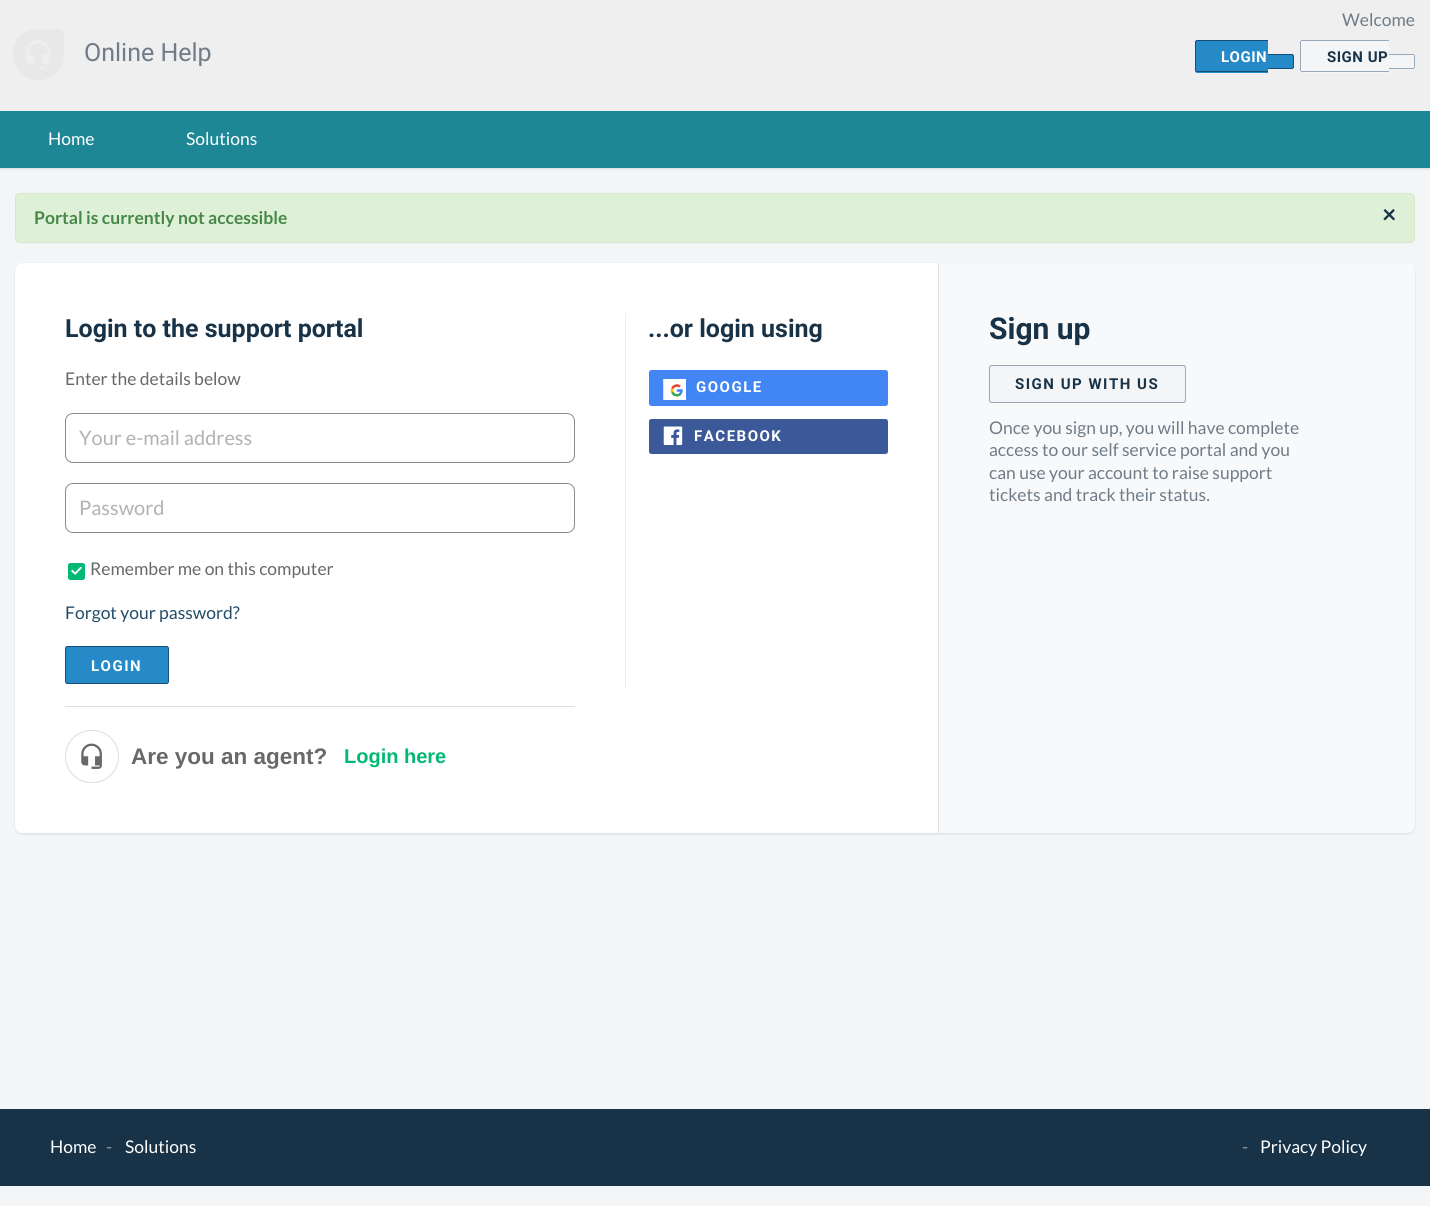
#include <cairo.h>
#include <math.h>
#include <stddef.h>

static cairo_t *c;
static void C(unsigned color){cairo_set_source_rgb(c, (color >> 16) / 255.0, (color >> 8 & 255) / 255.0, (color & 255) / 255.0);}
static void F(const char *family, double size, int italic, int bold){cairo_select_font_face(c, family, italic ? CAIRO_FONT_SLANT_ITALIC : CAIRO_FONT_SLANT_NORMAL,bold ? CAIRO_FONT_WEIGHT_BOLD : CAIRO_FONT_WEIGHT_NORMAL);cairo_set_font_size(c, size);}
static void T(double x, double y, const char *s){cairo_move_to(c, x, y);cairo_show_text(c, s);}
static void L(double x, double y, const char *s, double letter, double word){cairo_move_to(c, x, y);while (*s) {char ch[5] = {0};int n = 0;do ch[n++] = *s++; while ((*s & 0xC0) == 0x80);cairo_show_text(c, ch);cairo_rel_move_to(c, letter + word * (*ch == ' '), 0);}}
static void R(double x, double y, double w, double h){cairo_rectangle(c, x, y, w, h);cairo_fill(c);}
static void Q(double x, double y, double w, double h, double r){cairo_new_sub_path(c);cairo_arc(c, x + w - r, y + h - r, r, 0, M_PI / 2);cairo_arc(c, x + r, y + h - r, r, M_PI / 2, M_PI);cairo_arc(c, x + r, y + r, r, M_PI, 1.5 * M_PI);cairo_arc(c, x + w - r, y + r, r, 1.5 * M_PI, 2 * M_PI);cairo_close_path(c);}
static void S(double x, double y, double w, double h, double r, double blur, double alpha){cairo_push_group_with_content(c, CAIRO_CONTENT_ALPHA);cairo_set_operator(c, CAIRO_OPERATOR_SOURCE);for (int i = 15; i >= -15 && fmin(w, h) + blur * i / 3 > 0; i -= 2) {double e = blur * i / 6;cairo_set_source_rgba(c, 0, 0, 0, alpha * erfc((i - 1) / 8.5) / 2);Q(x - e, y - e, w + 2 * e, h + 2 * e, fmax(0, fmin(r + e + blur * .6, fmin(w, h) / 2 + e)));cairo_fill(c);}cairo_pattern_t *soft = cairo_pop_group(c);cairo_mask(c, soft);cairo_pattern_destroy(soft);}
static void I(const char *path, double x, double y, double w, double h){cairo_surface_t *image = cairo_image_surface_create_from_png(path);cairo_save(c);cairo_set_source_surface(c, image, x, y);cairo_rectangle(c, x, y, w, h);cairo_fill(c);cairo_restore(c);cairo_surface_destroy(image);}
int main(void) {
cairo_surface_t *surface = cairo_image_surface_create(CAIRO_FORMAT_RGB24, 1430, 1206);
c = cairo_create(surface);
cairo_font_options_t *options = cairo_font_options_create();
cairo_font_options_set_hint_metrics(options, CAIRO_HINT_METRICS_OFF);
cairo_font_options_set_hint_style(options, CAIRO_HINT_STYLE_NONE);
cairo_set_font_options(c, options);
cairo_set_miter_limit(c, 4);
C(0xf3f5f7);
cairo_paint(c);
C(0xefefef);
cairo_rectangle(c,.5,.5,1429,110);
cairo_fill_preserve(c);
C(0xebeef0);
cairo_set_line_width(c,1);
cairo_stroke(c);
I("1.png",13,29,51,51);
F("Roboto",25,0,0);
C(0x6f7c87);
T(84,61,"Online Help");
F("Lato",17.5,0,0);
T(1342,26,"Welcome");
C(0x278ac8);
cairo_new_path(c);
cairo_move_to(c,1197.5,40);
cairo_line_to(c,1268,40);
cairo_line_to(c,1268,73);
cairo_line_to(c,1197.5,73);
cairo_curve_to(c,1196,73,1195,72,1195,70.5);
cairo_line_to(c,1195,42.5);
cairo_curve_to(c,1195,41,1196,40,1197.5,40);
cairo_close_path(c);
cairo_fill(c);
F("Roboto",15,0,1);
C(0xffffff);
L(1221,62,"LOGIN",.5,0);
C(0x164f73);
R(1196,40,72,1);
R(1196,71,72,1);
R(1195,41,1,30);
C(0x278ac8);
cairo_new_path(c);
cairo_move_to(c,1268,54);
cairo_line_to(c,1291.5,54);
cairo_curve_to(c,1293,54,1294,55,1294,56.5);
cairo_line_to(c,1294,66.5);
cairo_curve_to(c,1294,68,1293,69,1291.5,69);
cairo_line_to(c,1268,69);
cairo_close_path(c);
cairo_fill(c);
C(0x164f73);
R(1268,54,25,1);
R(1293,55,1,13);
R(1268,68,25,1);
C(0xf3f5f7);
cairo_new_path(c);
cairo_move_to(c,1302.5,40);
cairo_line_to(c,1389,40);
cairo_line_to(c,1389,73);
cairo_line_to(c,1302.5,73);
cairo_curve_to(c,1301,73,1300,72,1300,70.5);
cairo_line_to(c,1300,42.5);
cairo_curve_to(c,1300,41,1301,40,1302.5,40);
cairo_close_path(c);
cairo_fill(c);
C(0x183247);
L(1327,62,"SIGN UP",.5,0);
C(0x97a9ba);
R(1301,40,88,1);
R(1301,71,88,1);
R(1300,41,1,30);
C(0xf3f5f7);
cairo_new_path(c);
cairo_move_to(c,1389,54);
cairo_line_to(c,1412.5,54);
cairo_curve_to(c,1414,54,1415,55,1415,56.5);
cairo_line_to(c,1415,66.5);
cairo_curve_to(c,1415,68,1414,69,1412.5,69);
cairo_line_to(c,1389,69);
cairo_close_path(c);
cairo_fill(c);
C(0x97a9ba);
R(1389,54,25,1);
R(1414,55,1,13);
R(1389,68,25,1);
C(0x3f3f44);
S(0,113,1430,56,0,1,.15);
C(0x1d8796);
R(0,111,1430,57);
F("Lato",17.5,0,0);
C(0xffffff);
T(48,145,"Home");
T(186,145,"Solutions");
C(0xdff0d8);
Q(15.5,193.5,1399,49,4.5);
cairo_fill_preserve(c);
C(0xd6e9c6);
cairo_stroke(c);
F("Lato",17.5,0,1);
C(0x468847);
T(34,224,"Portal is currently not accessible");
F("Lato",25,0,1);
C(0x183247);
T(1382,223,"×");
C(0x3f3f44);
S(15,264,1400,570,8,1,.15);
C(0xf8f9fa);
Q(15,263,1400,570,8);
cairo_fill(c);
C(0xffffff);
cairo_new_path(c);
cairo_move_to(c,23,263);
cairo_line_to(c,939,263);
cairo_line_to(c,939,833);
cairo_line_to(c,23,833);
cairo_curve_to(c,18.5,833,15,829.5,15,825);
cairo_line_to(c,15,271);
cairo_curve_to(c,15,266.5,18.5,263,23,263);
cairo_close_path(c);
cairo_fill(c);
C(0xdadfe3);
R(938,263,1,570);
F("Roboto",25,0,1);
C(0x183247);
T(65,337,"Login to the support portal");
F("Lato",17.5,0,0);
C(0x686868);
T(65,385,"Enter the details below");
Q(65.5,413.5,509,49,7.5);
C(0x8c8c8c);
cairo_stroke(c);
F("Lato",20,0,0);
C(0xb2b2b2);
T(79,445,"Your e-mail address");
Q(65.5,483.5,509,49,7.5);
C(0x8c8c8c);
cairo_stroke(c);
C(0xb2b2b2);
T(79,515,"Password");
C(0x02b875);
Q(68.5,563.5,16,16,2);
cairo_fill_preserve(c);
cairo_stroke(c);
I("2.png",71,566,11,9);
F("Lato",17.5,0,0);
C(0x686868);
T(90,575,"Remember me on this computer");
C(0x234d69);
T(65,619,"Forgot your password?");
C(0x278ac8);
Q(65.5,646.5,103,37,2);
cairo_fill_preserve(c);
C(0x164f73);
cairo_stroke(c);
F("Roboto",15,0,1);
C(0xffffff);
L(91,671,"LOGIN",1.5,0);
C(0xdddddd);
R(65,706,510,1);
Q(65.5,730.5,53,52,26);
cairo_stroke(c);
I("3.png",81,743,21,26);
F("Liberation Sans",22.5,0,1);
C(0x686868);
T(131,764,"Are you an agent?");
F("Liberation Sans",20,0,1);
C(0x02b875);
T(344,763,"Login here");
C(0xebeef0);
R(625,313,1,375);
F("Roboto",25,0,1);
C(0x183247);
T(648,337,"...or login using");
C(0x4285f4);
Q(649,370,239,36,2.5);
cairo_fill(c);
I("4.png",663,379,23,21);
F("Roboto",15,0,1);
C(0xffffff);
L(696,392,"GOOGLE",1.5,0);
C(0x3b5998);
Q(649,419,239,35,2.5);
cairo_fill(c);
I("5.png",663,426,20,19);
C(0xffffff);
L(694,441,"FACEBOOK",1.5,0);
C(0xf8f9fa);
cairo_new_path(c);
cairo_move_to(c,939,263);
cairo_line_to(c,1407,263);
cairo_curve_to(c,1411.5,263,1415,266.5,1415,271);
cairo_line_to(c,1415,562);
cairo_curve_to(c,1415,566.5,1411.5,570,1407,570);
cairo_line_to(c,939,570);
cairo_close_path(c);
cairo_fill(c);
F("Roboto",30,0,1);
C(0x183247);
T(989,339,"Sign up");
C(0xf3f5f7);
Q(989.5,365.5,196,37,2);
cairo_fill_preserve(c);
C(0x97a9ba);
cairo_stroke(c);
F("Roboto",15,0,1);
C(0x183247);
L(1015,389,"SIGN UP WITH US",1.5,0);
F("Lato",17.5,0,0);
C(0x6f7c87);
T(989,434,"Once you sign up, you will have complete");
T(989,456,"access to our self service portal and you");
T(989,479,"can use your account to raise support");
T(989,501,"tickets and track their status.");
C(0x183247);
R(0,1109,1430,77);
C(0xffffff);
T(50,1153,"Home");
C(0x8c99a3);
T(106,1153,"-");
C(0xffffff);
T(125,1153,"Solutions");
C(0x8c99a3);
T(1242,1153,"-");
C(0xffffff);
T(1260,1153,"Privacy Policy");
cairo_surface_write_to_png(surface, "o.png");
cairo_font_options_destroy(options);
cairo_destroy(c);
cairo_surface_destroy(surface);
return 0;
}
